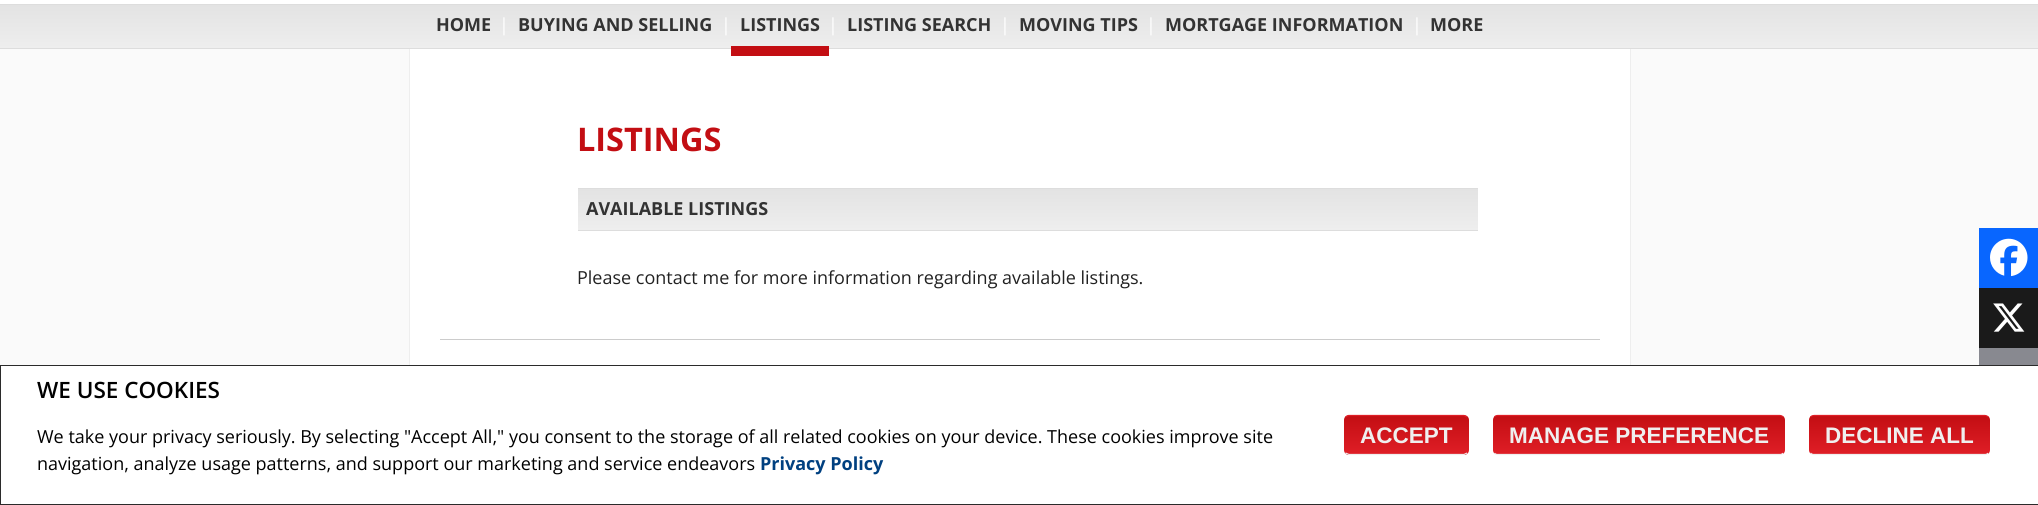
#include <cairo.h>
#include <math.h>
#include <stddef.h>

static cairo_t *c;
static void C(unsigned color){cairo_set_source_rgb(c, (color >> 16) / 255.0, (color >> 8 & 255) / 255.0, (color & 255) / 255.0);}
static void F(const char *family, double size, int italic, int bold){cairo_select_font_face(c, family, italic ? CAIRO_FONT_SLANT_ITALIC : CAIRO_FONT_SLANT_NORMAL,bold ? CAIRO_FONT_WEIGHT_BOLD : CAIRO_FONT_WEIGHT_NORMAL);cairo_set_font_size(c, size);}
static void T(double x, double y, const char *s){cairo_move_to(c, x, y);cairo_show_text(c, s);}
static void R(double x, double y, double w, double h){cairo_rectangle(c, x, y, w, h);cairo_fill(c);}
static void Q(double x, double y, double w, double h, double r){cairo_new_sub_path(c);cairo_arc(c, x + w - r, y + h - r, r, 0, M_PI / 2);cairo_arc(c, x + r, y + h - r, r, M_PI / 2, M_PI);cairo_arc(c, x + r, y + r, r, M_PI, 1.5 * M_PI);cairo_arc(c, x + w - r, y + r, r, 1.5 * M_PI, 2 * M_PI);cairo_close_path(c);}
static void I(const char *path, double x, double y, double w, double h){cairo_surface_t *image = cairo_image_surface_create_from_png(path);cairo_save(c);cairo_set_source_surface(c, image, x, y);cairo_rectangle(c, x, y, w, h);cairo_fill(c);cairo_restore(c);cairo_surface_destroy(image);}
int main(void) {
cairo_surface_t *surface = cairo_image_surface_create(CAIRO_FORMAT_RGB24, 2038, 505);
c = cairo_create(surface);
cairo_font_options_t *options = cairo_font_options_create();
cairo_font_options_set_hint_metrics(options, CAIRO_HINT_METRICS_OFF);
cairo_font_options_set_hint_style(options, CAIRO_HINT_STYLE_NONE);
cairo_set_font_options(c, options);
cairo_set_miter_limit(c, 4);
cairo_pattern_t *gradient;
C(0xfafafa);
cairo_paint(c);
C(0xffffff);
R(0,0,2038,4);
gradient = cairo_pattern_create_linear(1019,5,1019,48);
cairo_pattern_add_color_stop_rgba(gradient,0,0.89,0.89,0.89,1);
cairo_pattern_add_color_stop_rgba(gradient,1,0.933,0.933,0.933,1);
cairo_set_source(c,gradient);
cairo_pattern_destroy(gradient);
R(0,5,2038,43);
C(0xdddddd);
R(0,4,2038,1);
C(0xeeeeee);
R(1630,48,1,317);
R(409,48,1,317);
C(0xdddddd);
R(0,48,2038,1);
F("Open Sans",18,0,1);
C(0x333333);
T(436,31,"HOME");
F("Open Sans",18,0,0);
C(0xffffff);
T(499,31,"|");
F("Open Sans",18,0,1);
C(0x333333);
T(518,31,"BUYING AND SELLING");
F("Open Sans",18,0,0);
C(0xffffff);
T(721,31,"|");
R(410,49,1220,316);
C(0xc30e13);
R(731,46,98,10);
F("Open Sans",18,0,1);
C(0x333333);
T(740,31,"LISTINGS");
F("Open Sans",18,0,0);
C(0xffffff);
T(828,31,"|");
F("Open Sans",18,0,1);
C(0x333333);
T(847,31,"LISTING SEARCH");
F("Open Sans",18,0,0);
C(0xffffff);
T(1000,31,"|");
F("Open Sans",18,0,1);
C(0x333333);
T(1019,31,"MOVING TIPS");
F("Open Sans",18,0,0);
C(0xffffff);
T(1146,31,"|");
F("Open Sans",18,0,1);
C(0x333333);
T(1165,31,"MORTGAGE INFORMATION");
F("Open Sans",18,0,0);
C(0xffffff);
T(1412,31,"|");
F("Open Sans",18,0,1);
C(0x333333);
T(1430,31,"MORE");
F("Open Sans",32.5,0,1);
C(0xc30e13);
T(577,151,"LISTINGS");
gradient = cairo_pattern_create_linear(1028,189,1028,230);
cairo_pattern_add_color_stop_rgba(gradient,0,0.89,0.89,0.89,1);
cairo_pattern_add_color_stop_rgba(gradient,1,0.933,0.933,0.933,1);
cairo_set_source(c,gradient);
cairo_pattern_destroy(gradient);
R(578,189,900,41);
C(0xdddddd);
R(578,188,900,1);
R(578,230,900,1);
F("Open Sans",18,0,1);
C(0x333333);
T(586,215,"AVAILABLE LISTINGS");
F("Open Sans",18,0,0);
C(0x222222);
T(577,284,"Please contact me for more information regarding available listings.");
C(0xcccccc);
R(440,339,1160,1);
C(0x0866ff);
R(1979,228,59,60);
I("1.png",1990,238,38,39);
C(0x1a1a1a);
R(1979,288,59,60);
I("2.png",1993,303,32,29);
C(0x888990);
R(1979,348,59,17);
C(0xffffff);
cairo_rectangle(c,.5,365.5,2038,139);
cairo_fill_preserve(c);
C(0x2b2b2b);
cairo_set_line_width(c,1);
cairo_stroke(c);
F("Open Sans SemiBold",22.5,0,0);
C(0x000000);
T(37,398,"WE USE COOKIES");
F("Open Sans",18,0,0);
T(37,443,"We take your privacy seriously. By selecting \"Accept All,\" you consent to the storage of all related cookies on your device. These cookies improve site");
T(37,470,"navigation, analyze usage patterns, and support our marketing and service endeavors");
F("Open Sans",18,0,1);
C(0x004080);
T(760,470,"Privacy Policy");
cairo_save(c);
Q(1344,415,125,40,5);
cairo_clip(c);
gradient = cairo_pattern_create_linear(1406,379,1406,416);
cairo_pattern_add_color_stop_rgba(gradient,0,0.765,0.055,0.075,1);
cairo_pattern_add_color_stop_rgba(gradient,1,0.875,0.118,0.149,1);
cairo_set_source(c,gradient);
cairo_pattern_destroy(gradient);
R(1344,415,125,1);
gradient = cairo_pattern_create_linear(1406,416,1406,454);
cairo_pattern_add_color_stop_rgba(gradient,0,0.765,0.055,0.075,1);
cairo_pattern_add_color_stop_rgba(gradient,1,0.875,0.118,0.149,1);
cairo_set_source(c,gradient);
cairo_pattern_destroy(gradient);
R(1344,416,125,38);
gradient = cairo_pattern_create_linear(1406,454,1406,491);
cairo_pattern_add_color_stop_rgba(gradient,0,0.765,0.055,0.075,1);
cairo_pattern_add_color_stop_rgba(gradient,1,0.875,0.118,0.149,1);
cairo_set_source(c,gradient);
cairo_pattern_destroy(gradient);
R(1344,454,125,1);
cairo_restore(c);
cairo_new_path(c);
cairo_move_to(c,1345.5,417);
cairo_line_to(c,1348.5,415.5);
cairo_line_to(c,1444.5,415.5);
cairo_line_to(c,1464,415.5);
cairo_line_to(c,1467,417);
C(0xdf1e26);
cairo_set_line_width(c,1.2);
cairo_stroke(c);
cairo_new_path(c);
cairo_move_to(c,1467,453);
cairo_line_to(c,1464,454.5);
cairo_line_to(c,1368,454.5);
cairo_line_to(c,1349,454.5);
cairo_line_to(c,1345.5,453);
C(0xefefef);
cairo_stroke(c);
F("Liberation Sans",22.5,0,1);
T(1360,443,"ACCEPT");
cairo_save(c);
Q(1493,415,292,40,5);
cairo_clip(c);
gradient = cairo_pattern_create_linear(1639,416,1639,454);
cairo_pattern_add_color_stop_rgba(gradient,0,0.765,0.055,0.075,1);
cairo_pattern_add_color_stop_rgba(gradient,1,0.875,0.118,0.149,1);
cairo_set_source(c,gradient);
cairo_pattern_destroy(gradient);
R(1493,416,292,38);
cairo_restore(c);
cairo_new_path(c);
cairo_move_to(c,1494.5,417);
cairo_curve_to(c,1495,416,1496.5,415.5,1497.5,415.5);
cairo_line_to(c,1780,415.5);
cairo_curve_to(c,1781,415.5,1782.5,416,1783,417);
C(0xdf1e26);
cairo_stroke(c);
cairo_new_path(c);
cairo_move_to(c,1783,453);
cairo_curve_to(c,1782.5,454,1781,454.5,1780,454.5);
cairo_line_to(c,1497.5,454.5);
cairo_curve_to(c,1496.5,454.5,1495,454,1494.5,453);
C(0xefefef);
cairo_stroke(c);
T(1509,443,"MANAGE PREFERENCE");
cairo_save(c);
Q(1809,415,181,40,5);
cairo_clip(c);
gradient = cairo_pattern_create_linear(1899,416,1899,454);
cairo_pattern_add_color_stop_rgba(gradient,0,0.765,0.055,0.075,1);
cairo_pattern_add_color_stop_rgba(gradient,1,0.875,0.118,0.149,1);
cairo_set_source(c,gradient);
cairo_pattern_destroy(gradient);
R(1809,416,181,38);
cairo_restore(c);
cairo_new_path(c);
cairo_move_to(c,1810.5,417);
cairo_curve_to(c,1811.5,416,1812.5,415.5,1814,415.5);
cairo_line_to(c,1985,415.5);
cairo_curve_to(c,1986,415.5,1987.5,416,1988,417);
C(0xdf1e26);
cairo_stroke(c);
cairo_new_path(c);
cairo_move_to(c,1988,453);
cairo_curve_to(c,1987.5,454,1986,454.5,1985,454.5);
cairo_line_to(c,1814,454.5);
cairo_curve_to(c,1812.5,454.5,1811.5,454,1810.5,453);
C(0xefefef);
cairo_stroke(c);
T(1825,443,"DECLINE ALL");
cairo_surface_write_to_png(surface, "o.png");
cairo_font_options_destroy(options);
cairo_destroy(c);
cairo_surface_destroy(surface);
return 0;
}
